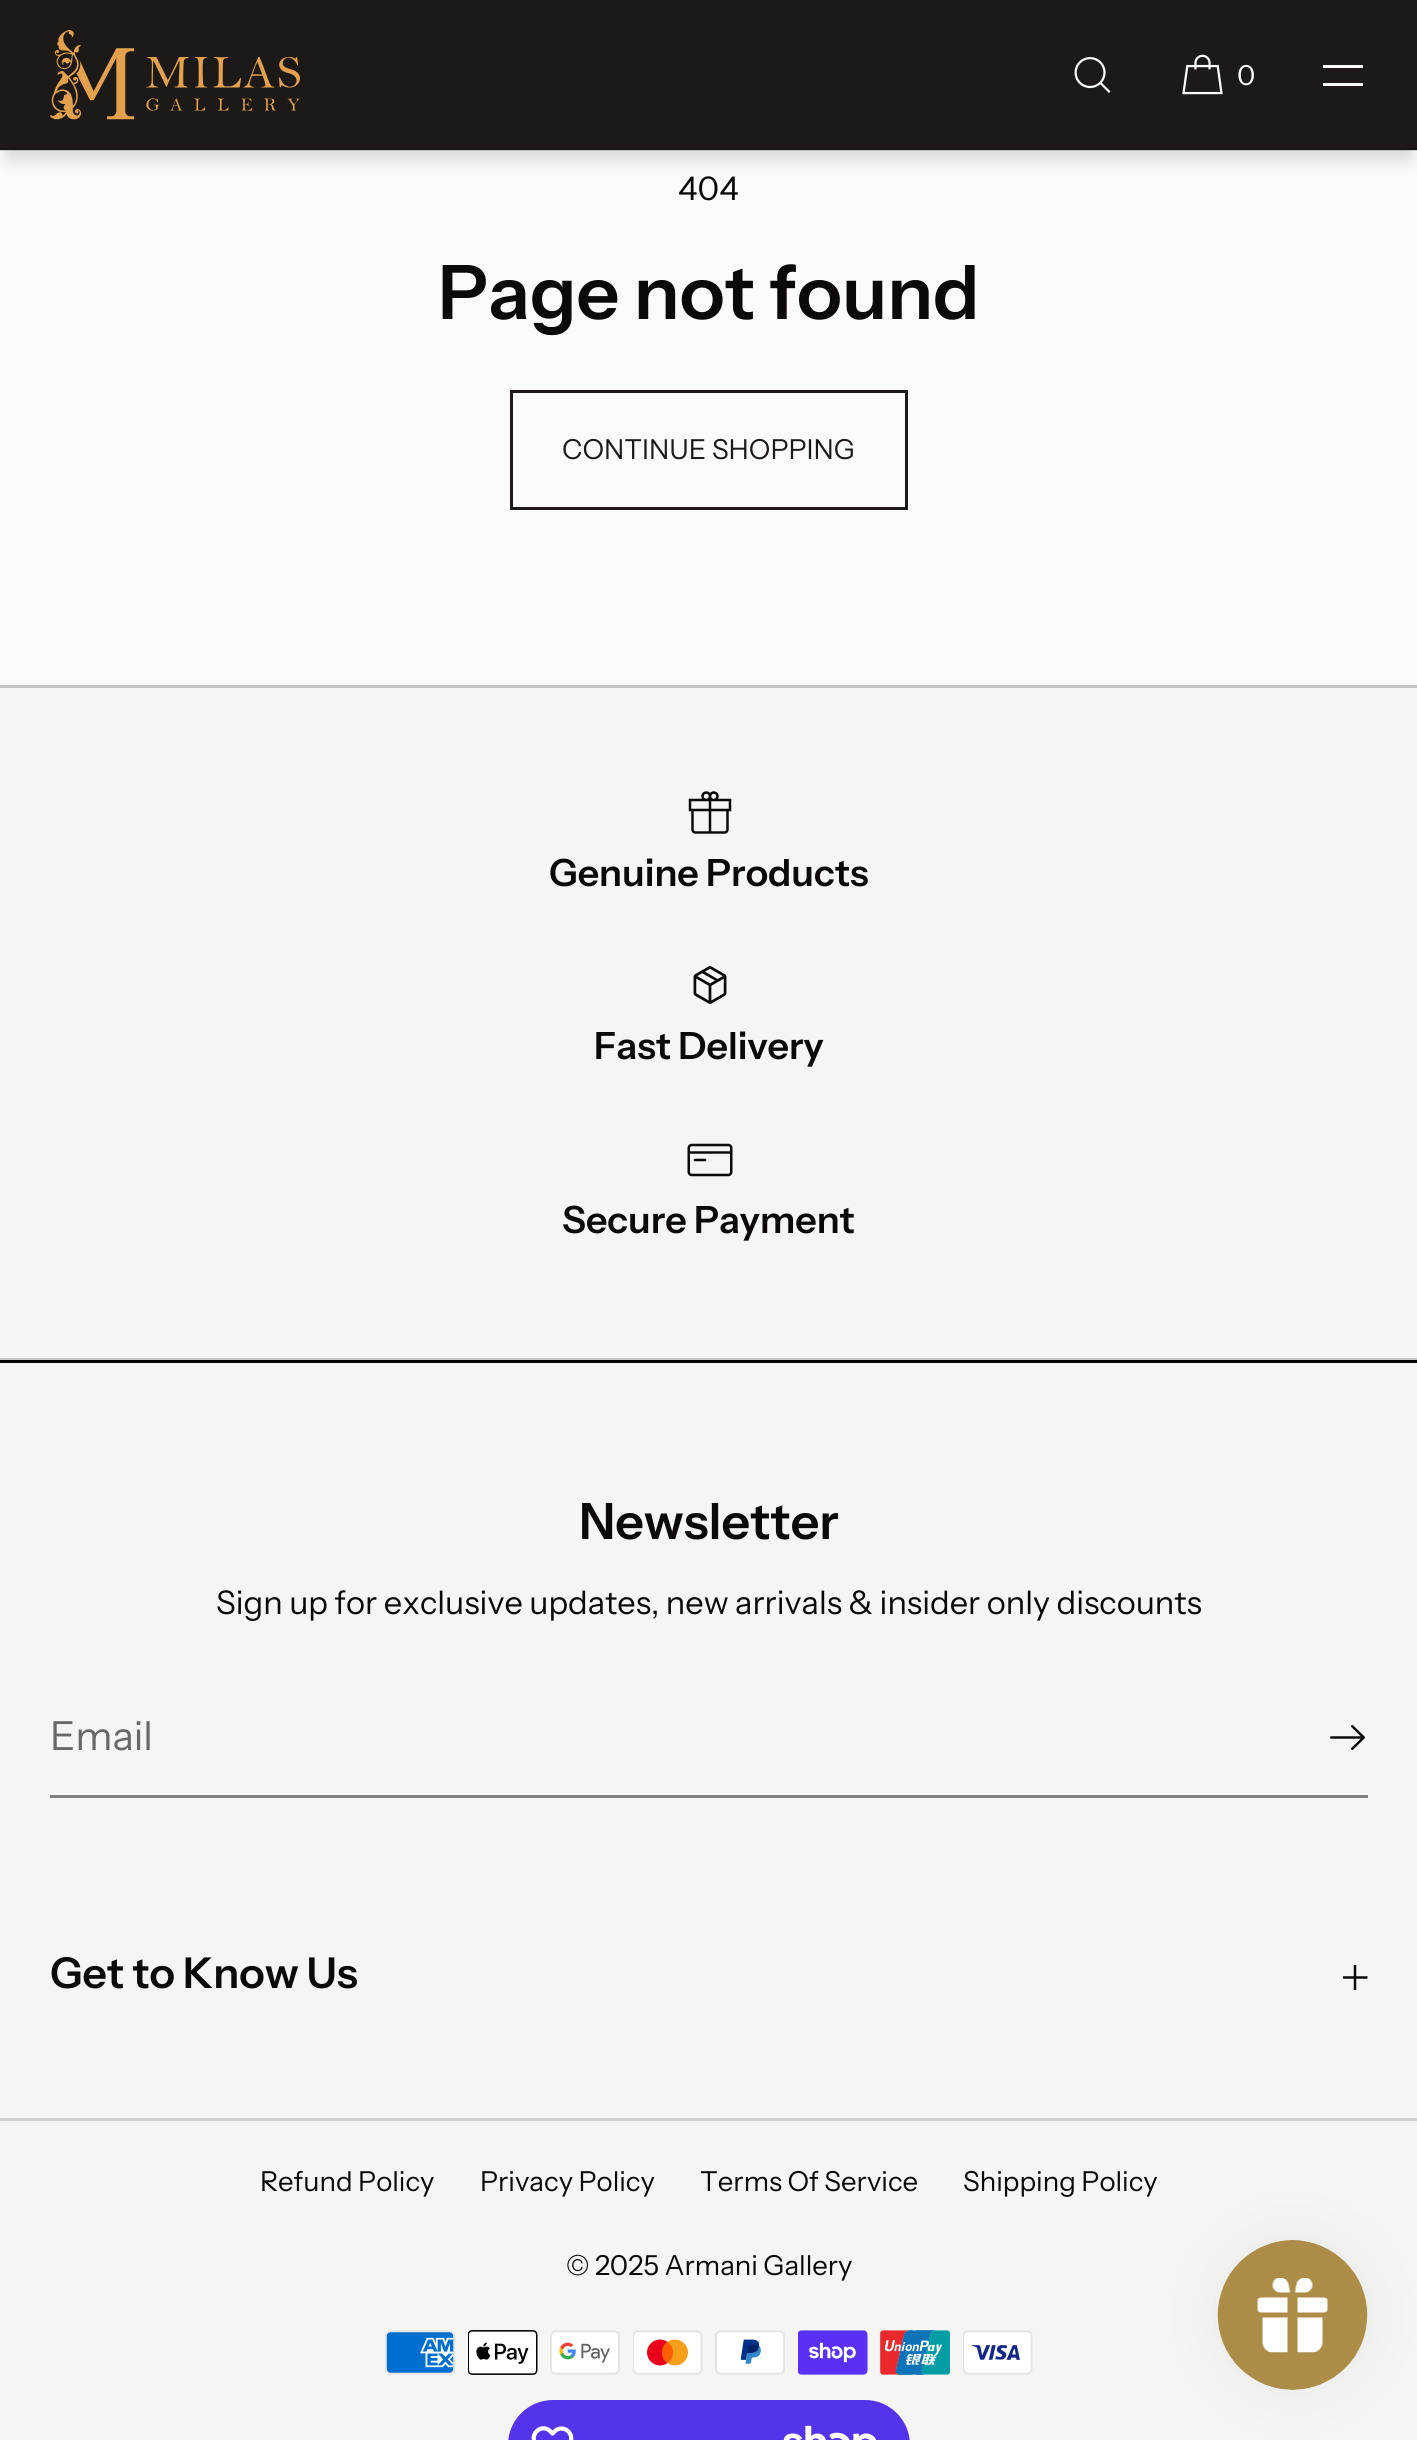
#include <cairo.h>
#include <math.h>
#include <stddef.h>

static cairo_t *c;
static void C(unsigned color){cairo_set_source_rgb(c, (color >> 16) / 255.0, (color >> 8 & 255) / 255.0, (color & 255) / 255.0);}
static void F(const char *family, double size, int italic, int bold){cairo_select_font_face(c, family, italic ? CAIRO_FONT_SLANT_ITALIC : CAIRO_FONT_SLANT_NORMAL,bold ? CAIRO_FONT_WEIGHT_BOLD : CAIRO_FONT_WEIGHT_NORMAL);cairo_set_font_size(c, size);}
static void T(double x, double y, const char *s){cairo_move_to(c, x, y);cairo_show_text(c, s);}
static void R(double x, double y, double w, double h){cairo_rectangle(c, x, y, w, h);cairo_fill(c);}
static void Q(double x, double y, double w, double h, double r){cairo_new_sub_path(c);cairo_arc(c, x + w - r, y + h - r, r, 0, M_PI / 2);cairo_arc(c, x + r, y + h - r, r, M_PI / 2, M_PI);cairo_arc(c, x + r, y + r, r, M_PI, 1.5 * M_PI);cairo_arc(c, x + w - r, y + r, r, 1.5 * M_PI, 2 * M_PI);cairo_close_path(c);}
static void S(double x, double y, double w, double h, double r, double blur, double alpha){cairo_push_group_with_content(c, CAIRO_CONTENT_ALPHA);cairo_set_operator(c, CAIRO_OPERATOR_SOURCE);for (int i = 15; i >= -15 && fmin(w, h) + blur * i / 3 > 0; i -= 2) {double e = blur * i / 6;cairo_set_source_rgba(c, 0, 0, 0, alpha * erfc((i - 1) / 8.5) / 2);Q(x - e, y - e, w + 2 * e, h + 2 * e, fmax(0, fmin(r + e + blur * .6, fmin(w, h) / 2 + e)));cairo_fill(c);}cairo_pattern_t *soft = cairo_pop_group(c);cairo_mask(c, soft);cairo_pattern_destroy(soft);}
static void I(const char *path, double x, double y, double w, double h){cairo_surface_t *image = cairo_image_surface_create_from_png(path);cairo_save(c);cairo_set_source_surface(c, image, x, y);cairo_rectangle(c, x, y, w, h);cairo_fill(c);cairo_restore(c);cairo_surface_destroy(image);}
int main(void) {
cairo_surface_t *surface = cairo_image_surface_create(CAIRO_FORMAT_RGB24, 1417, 2440);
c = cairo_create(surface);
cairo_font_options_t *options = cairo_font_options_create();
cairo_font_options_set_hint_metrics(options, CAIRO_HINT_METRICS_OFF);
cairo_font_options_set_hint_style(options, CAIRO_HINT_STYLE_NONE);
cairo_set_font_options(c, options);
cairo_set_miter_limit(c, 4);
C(0xfafaf9);
cairo_paint(c);
C(0x000000);
S(8,23,1402,135,0,9,.15);
C(0x1c1917);
R(0,0,1417,150);
cairo_set_source_rgba(c,0,0,0,0.15);
R(0,148,1417,3);
I("1.png",50,30,250,90);
I("2.png",1074,57,37,36);
I("3.png",1182,54,41,41);
F("Instrument Sans",27.5,0,0);
C(0xfafaf9);
T(1237,85,"0");
R(1323,65,40,3);
R(1323,83,40,3);
F("Instrument Sans",32.5,0,0);
C(0x0c0a09);
T(678,200,"404");
F("Instrument Sans SemiBold",75,0,0);
T(438,319,"Page not found");
cairo_rectangle(c,511.5,391.5,395,117);
C(0x1c1917);
cairo_set_line_width(c,3);
cairo_stroke(c);
F("Instrument Sans",27.5,0,0);
T(562,459,"CONTINUE SHOPPING");
C(0xf5f5f4);
R(0,688,1417,670);
C(0xc6c6c5);
R(0,1358,1417,2);
R(0,685,1417,3);
I("4.png",688,791,44,43);
F("Instrument Sans SemiBold",37.5,0,0);
C(0x0c0a09);
T(549,886,"Genuine Products");
I("5.png",693,966,34,38);
T(594,1059,"Fast Delivery");
I("6.png",687,1143,46,34);
T(562,1233,"Secure Payment");
C(0xf5f5f4);
R(0,1363,1417,1077);
C(0x000000);
R(0,1361,1417,2);
C(0x020202);
R(0,1360,1417,1);
F("Instrument Sans SemiBold",50,0,0);
C(0x0c0a09);
T(579,1539,"Newsletter");
F("Instrument Sans",32.5,0,0);
T(216,1614,"Sign up for exclusive updates, new arrivals & insider only discounts");
C(0x81807f);
R(50,1795,1318,3);
F("Instrument Sans",40,0,0);
C(0x696867);
T(50,1750,"Email");
I("7.png",1330,1725,35,25);
F("Instrument Sans SemiBold",42.5,0,0);
C(0x0c0a09);
T(50,1988,"Get to Know Us");
I("8.png",1343,1965,25,25);
C(0xd0d0cf);
R(0,2118,1417,3);
F("Instrument Sans",27.5,0,0);
C(0x0c0a09);
T(260,2191,"Refund Policy");
T(480,2191,"Privacy Policy");
T(700,2191,"Terms Of Service");
T(963,2191,"Shipping Policy");
T(566,2275,"© 2025 Armani Gallery");
I("9.png",385,2330,70,45);
I("10.png",468,2330,70,45);
I("11.png",550,2330,70,45);
I("12.png",633,2330,70,45);
I("13.png",715,2330,70,45);
I("14.png",798,2330,70,45);
I("15.png",880,2330,70,45);
I("16.png",963,2330,70,45);
C(0x5433eb);
Q(508,2400,402,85,45);
cairo_fill(c);
cairo_new_path(c);
cairo_move_to(c,550.5,2431.5);
cairo_line_to(c,552.5,2433.5);
cairo_curve_to(c,554.5,2431.5,556,2429.5,558.5,2429);
cairo_curve_to(c,566.5,2426.5,573.5,2434.5,570.5,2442);
cairo_curve_to(c,569,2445.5,565.5,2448,563,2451);
cairo_line_to(c,552.5,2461.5);
cairo_line_to(c,542,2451);
cairo_curve_to(c,539.5,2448,536,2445.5,534.5,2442);
cairo_curve_to(c,530.5,2432,543,2423.5,550.5,2431.5);
cairo_close_path(c);
C(0xffffff);
cairo_set_line_width(c,4.2);
cairo_set_line_join(c,CAIRO_LINE_JOIN_ROUND);
cairo_stroke(c);
I("17.png",783,2425,94,15);
C(0x000000);
S(1218,2240,150,150,75,31,.05);
I("18.png",1217,2240,151,150);
cairo_surface_write_to_png(surface, "o.png");
cairo_font_options_destroy(options);
cairo_destroy(c);
cairo_surface_destroy(surface);
return 0;
}
